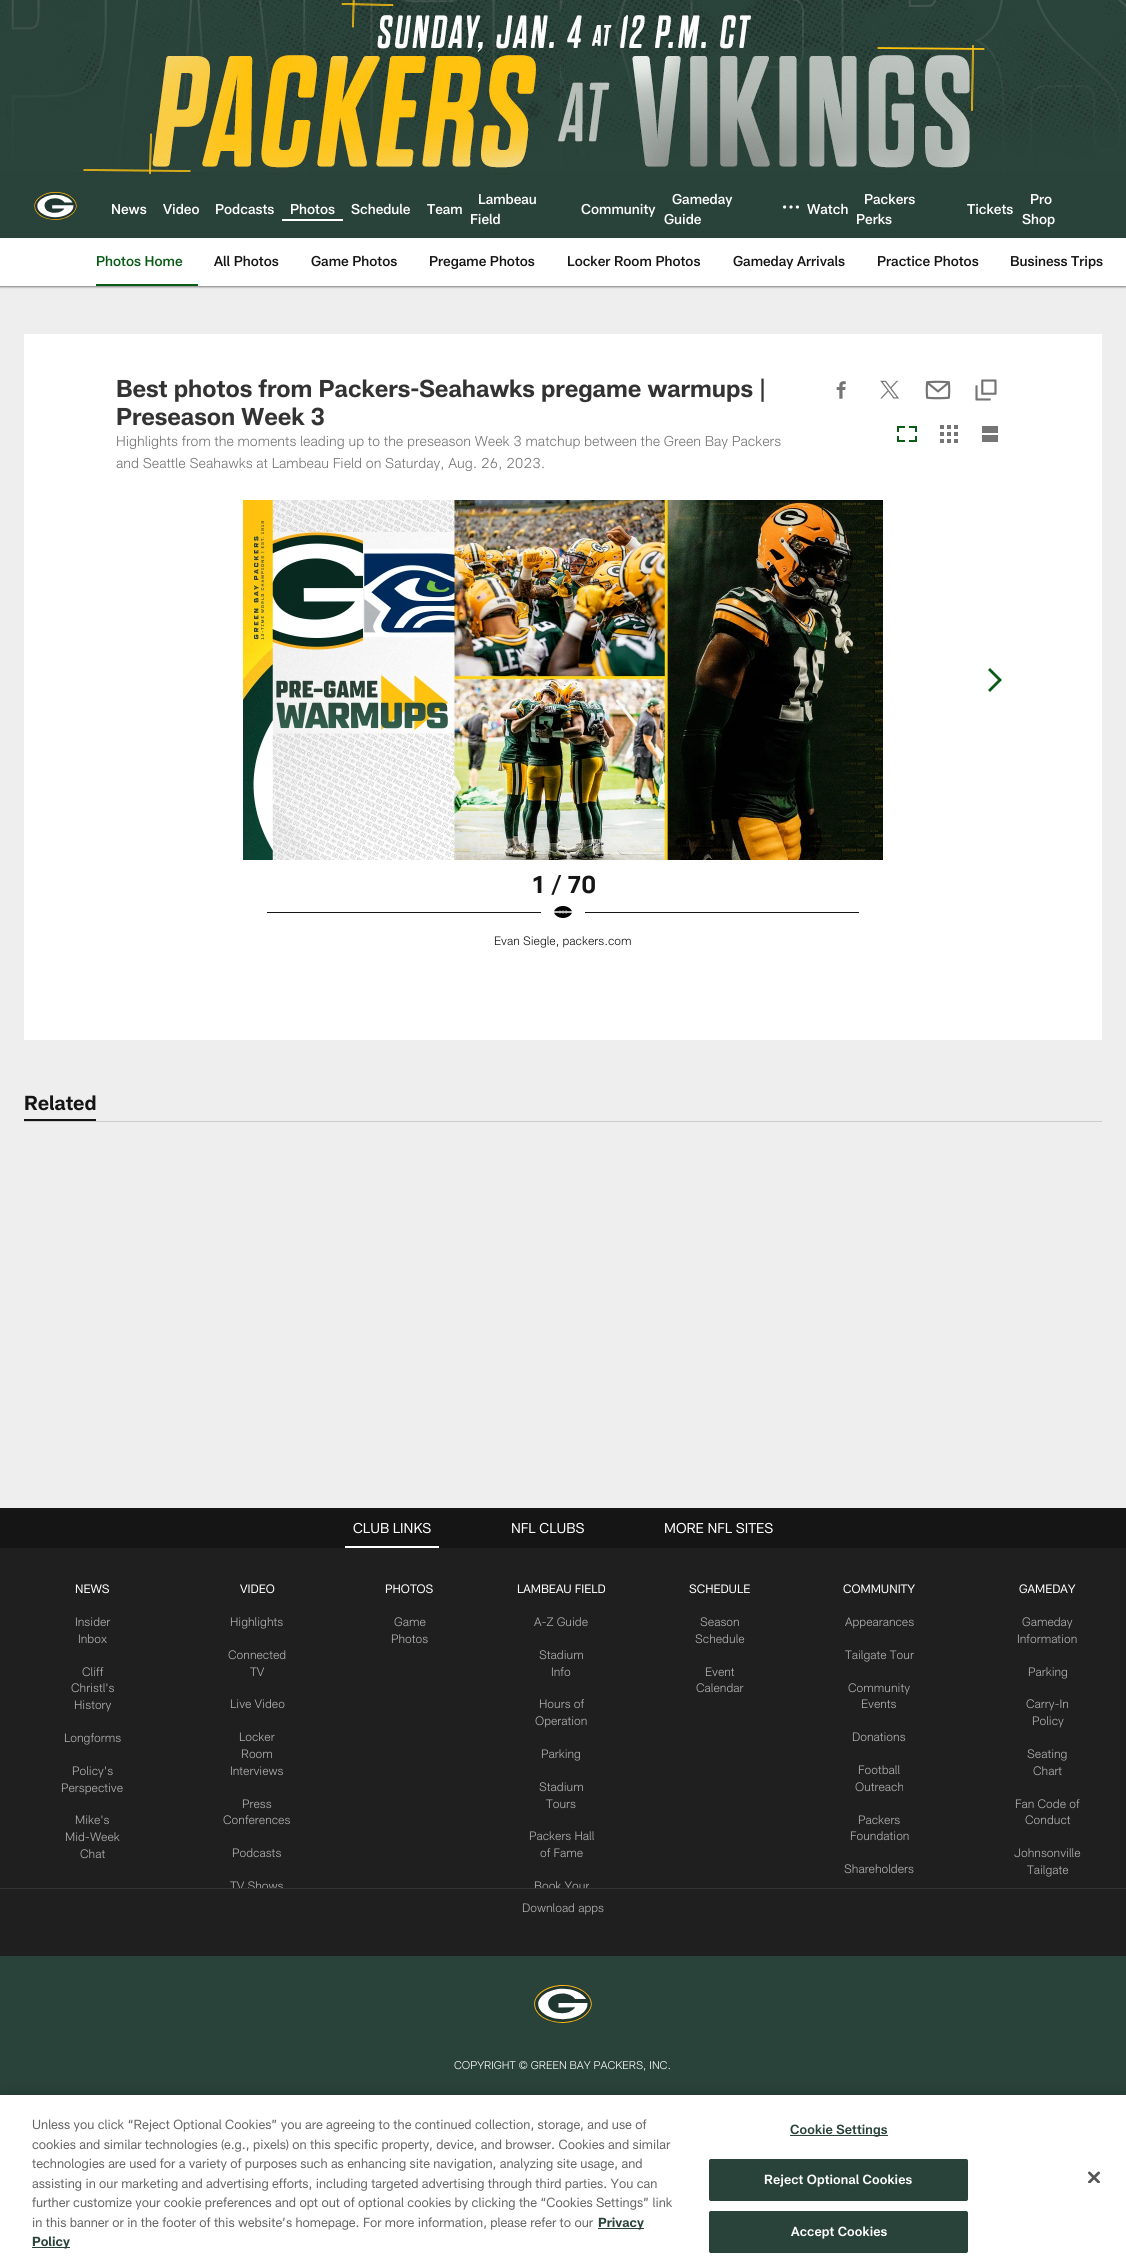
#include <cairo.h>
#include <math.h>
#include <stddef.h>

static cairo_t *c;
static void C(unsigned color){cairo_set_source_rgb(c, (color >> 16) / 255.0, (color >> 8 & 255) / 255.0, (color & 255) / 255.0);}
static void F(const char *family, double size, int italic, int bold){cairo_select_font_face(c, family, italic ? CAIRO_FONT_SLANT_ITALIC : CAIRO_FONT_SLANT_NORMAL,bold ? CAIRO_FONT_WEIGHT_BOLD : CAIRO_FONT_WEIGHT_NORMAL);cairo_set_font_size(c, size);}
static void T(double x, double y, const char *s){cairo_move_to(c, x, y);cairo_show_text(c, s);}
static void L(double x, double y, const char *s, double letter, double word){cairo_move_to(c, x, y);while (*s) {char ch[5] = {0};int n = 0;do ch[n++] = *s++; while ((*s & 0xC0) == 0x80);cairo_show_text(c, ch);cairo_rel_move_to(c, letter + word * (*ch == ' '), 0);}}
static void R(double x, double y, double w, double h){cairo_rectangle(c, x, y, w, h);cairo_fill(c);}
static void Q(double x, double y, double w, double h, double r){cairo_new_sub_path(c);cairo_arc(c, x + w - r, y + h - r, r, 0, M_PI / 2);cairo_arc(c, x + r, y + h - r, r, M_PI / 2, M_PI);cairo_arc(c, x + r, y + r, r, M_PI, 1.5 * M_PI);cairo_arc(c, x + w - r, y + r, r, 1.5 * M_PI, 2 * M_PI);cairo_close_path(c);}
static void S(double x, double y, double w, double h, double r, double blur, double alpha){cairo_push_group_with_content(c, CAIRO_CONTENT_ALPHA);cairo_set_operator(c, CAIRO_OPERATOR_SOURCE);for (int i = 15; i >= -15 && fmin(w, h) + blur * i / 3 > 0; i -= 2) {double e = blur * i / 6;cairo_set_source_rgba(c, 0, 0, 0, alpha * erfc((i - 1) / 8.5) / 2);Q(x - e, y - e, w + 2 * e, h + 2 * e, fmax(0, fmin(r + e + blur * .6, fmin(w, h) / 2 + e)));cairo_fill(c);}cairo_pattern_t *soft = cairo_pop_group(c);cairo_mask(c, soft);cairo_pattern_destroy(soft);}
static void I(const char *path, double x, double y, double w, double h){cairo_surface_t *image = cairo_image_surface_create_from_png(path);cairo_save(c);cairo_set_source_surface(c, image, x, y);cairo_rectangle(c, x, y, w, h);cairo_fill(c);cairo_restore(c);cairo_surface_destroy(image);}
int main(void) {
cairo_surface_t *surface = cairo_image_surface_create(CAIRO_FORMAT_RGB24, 1126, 2262);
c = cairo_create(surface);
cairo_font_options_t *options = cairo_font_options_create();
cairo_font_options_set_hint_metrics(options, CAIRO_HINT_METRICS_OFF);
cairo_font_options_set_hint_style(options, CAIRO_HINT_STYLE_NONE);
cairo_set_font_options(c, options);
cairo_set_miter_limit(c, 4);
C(0xeeeeee);
cairo_paint(c);
I("1.png",0,0,1126,174);
C(0x000000);
S(0,175,1126,64,0,1,.47);
C(0x2a433a);
R(0,174,1126,64);
I("2.png",34,192,43,28);
F("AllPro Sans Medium",14,0,0);
C(0xffffff);
T(111,214,"News");
T(163,214,"Video");
T(215,214,"Podcasts");
R(282,219,61,2);
T(290,214,"Photos");
T(351,214,"Schedule");
T(427,214,"Team");
T(478,204,"Lambeau");
T(470,224,"Field");
T(581,214,"Community");
T(672,204,"Gameday");
T(664,224,"Guide");
cairo_new_path(c);
cairo_arc(c,797.4,207,1.6,0,2 * M_PI);
cairo_fill(c);
cairo_arc(c,791,207,1.6,0,2 * M_PI);
cairo_fill(c);
cairo_arc(c,784.6,207,1.6,0,2 * M_PI);
cairo_fill(c);
T(807,214,"Watch");
T(864,204,"Packers");
T(856,224,"Perks");
T(967,214,"Tickets");
T(1030,204,"Pro");
T(1022,224,"Shop");
C(0x000000);
S(0,239,1126,48,0,1,.47);
C(0xffffff);
R(0,238,1126,48);
C(0x085c16);
R(96,284,102,2);
T(96,266,"Photos Home");
C(0x151515);
T(214,266,"All Photos");
T(311,266,"Game Photos");
T(429,266,"Pregame Photos");
T(567,266,"Locker Room Photos");
T(733,266,"Gameday Arrivals");
T(877,266,"Practice Photos");
T(1010,266,"Business Trips");
C(0xffffff);
R(24,334,1078,706);
F("AllPro Sans",24,0,1);
C(0x333333);
T(116,397,"Best photos from Packers-Seahawks pregame warmups |");
T(116,425,"Preseason Week 3");
F("AllPro Sans Light",14,0,0);
C(0x757575);
T(116,446,"Highlights from the moments leading up to the preseason Week 3 matchup between the Green Bay Packers");
T(116,468,"and Seattle Seahawks at Lambeau Field on Saturday, Aug. 26, 2023.");
I("3.png",836,381,10,18);
I("4.png",880,380,19,19);
I("5.png",925,380,26,20);
I("6.png",975,379,22,22);
I("7.png",897,426,20,16);
I("8.png",940,425,18,18);
R(982,426,16,7);
R(982,435,16,7);
C(0x085c16);
cairo_new_path(c);
cairo_move_to(c,998,680);
cairo_line_to(c,988,670);
cairo_line_to(c,990,668);
cairo_line_to(c,1002,680);
cairo_line_to(c,990,692);
cairo_line_to(c,988,690);
cairo_line_to(c,989,689);
cairo_close_path(c);
cairo_fill(c);
I("9.png",243,500,640,360);
F("AllPro Sans",24,0,1);
C(0x151515);
T(531,893,"1 / 70");
R(267,912,274,1);
I("10.png",554,906,18,12);
R(585,912,274,1);
F("AllPro Sans Light",12,0,0);
T(494,945,"Evan Siegle, packers.com");
C(0xcccccc);
R(24,1121,1078,1);
C(0x151515);
R(24,1119,72,2);
F("AllPro Sans",20,0,1);
T(24,1110,"Related");
C(0x1f1f1f);
R(0,1548,1126,340);
C(0x151515);
R(0,1508,1126,40);
C(0xffffff);
R(345,1546,94,2);
F("AllPro Sans",14,0,0);
T(353,1533,"CLUB LINKS");
T(511,1533,"NFL CLUBS");
T(664,1533,"MORE NFL SITES");
F("AllPro Sans",12,0,0);
T(75,1593,"NEWS");
F("AllPro Sans Light",12,0,0);
C(0xb2b2b2);
T(75,1626,"Insider");
T(78,1643,"Inbox");
T(82,1676,"Cliff");
T(71,1692,"Christl's");
T(74,1709,"History");
T(64,1742,"Longforms");
T(72,1775,"Policy's");
T(61,1792,"Perspective");
T(75,1824,"Mike's");
T(65,1841,"Mid-Week");
T(80,1858,"Chat");
F("AllPro Sans",12,0,0);
C(0xffffff);
T(240,1593,"VIDEO");
F("AllPro Sans Light",12,0,0);
C(0xb2b2b2);
T(230,1626,"Highlights");
T(228,1659,"Connected");
T(250,1676,"TV");
T(230,1708,"Live Video");
T(239,1741,"Locker");
T(241,1758,"Room");
T(230,1775,"Interviews");
T(242,1808,"Press");
T(223,1824,"Conferences");
T(232,1857,"Podcasts");
cairo_save(c);
cairo_rectangle(c,0,1508,1126,380);
cairo_clip(c);
T(230,1890,"TV Shows");
cairo_restore(c);
F("AllPro Sans",12,0,0);
C(0xffffff);
T(385,1593,"PHOTOS");
F("AllPro Sans Light",12,0,0);
C(0xb2b2b2);
T(394,1626,"Game");
T(391,1643,"Photos");
F("AllPro Sans",12,0,0);
C(0xffffff);
T(517,1593,"LAMBEAU FIELD");
F("AllPro Sans Light",12,0,0);
C(0xb2b2b2);
T(534,1626,"A-Z Guide");
T(539,1659,"Stadium");
T(551,1676,"Info");
T(539,1708,"Hours of");
T(535,1725,"Operation");
T(541,1758,"Parking");
T(539,1791,"Stadium");
T(546,1808,"Tours");
T(529,1840,"Packers Hall");
T(540,1857,"of Fame");
cairo_save(c);
cairo_rectangle(c,0,1508,1126,380);
cairo_clip(c);
T(534,1890,"Book Your");
cairo_restore(c);
F("AllPro Sans",12,0,0);
C(0xffffff);
T(689,1593,"SCHEDULE");
F("AllPro Sans Light",12,0,0);
C(0xb2b2b2);
T(700,1626,"Season");
T(695,1643,"Schedule");
T(705,1676,"Event");
T(696,1692,"Calendar");
F("AllPro Sans",12,0,0);
C(0xffffff);
T(843,1593,"COMMUNITY");
F("AllPro Sans Light",12,0,0);
C(0xb2b2b2);
T(845,1626,"Appearances");
T(845,1659,"Tailgate Tour");
T(848,1692,"Community");
T(861,1708,"Events");
T(852,1741,"Donations");
T(858,1774,"Football");
T(855,1791,"Outreach");
T(858,1824,"Packers");
T(850,1840,"Foundation");
T(844,1873,"Shareholders");
F("AllPro Sans",12,0,0);
C(0xffffff);
T(1019,1593,"GAMEDAY");
F("AllPro Sans Light",12,0,0);
C(0xb2b2b2);
T(1022,1626,"Gameday");
T(1017,1643,"Information");
T(1028,1676,"Parking");
T(1026,1708,"Carry-In");
T(1032,1725,"Policy");
T(1027,1758,"Seating");
T(1033,1775,"Chart");
T(1015,1808,"Fan Code of");
T(1025,1824,"Conduct");
T(1014,1857,"Johnsonville");
T(1027,1874,"Tailgate");
C(0x1f1f1f);
R(0,1889,1126,67);
C(0x333333);
R(0,1888,1126,1);
C(0xb2b2b2);
T(522,1912,"Download apps");
C(0x2a433a);
R(0,1956,1126,139);
I("11.png",534,1985,58,38);
F("AllPro Sans Light",11,0,0);
C(0xffffff);
T(454,2069,"COPYRIGHT © GREEN BAY PACKERS, INC.");
C(0x000000);
S(0,2095,1126,167,0,9,.2);
C(0xffffff);
R(0,2095,1126,167);
F("AllPro Sans",13,0,0);
C(0x666666);
T(32,2129,"Unless you click “Reject Optional Cookies” you are agreeing to the continued collection, storage, and use of");
T(32,2149,"cookies and similar technologies (e.g., pixels) on this specific property, device, and browser. Cookies and similar");
T(32,2168,"technologies are used for a variety of purposes such as enhancing site navigation, analyzing site usage, and");
T(32,2188,"assisting in our marketing and advertising efforts, including targeted advertising through third parties. You can");
T(32,2207,"further customize your cookie preferences and opt out of optional cookies by clicking the “Cookies Settings” link");
T(32,2227,"in this banner or in the footer of this website’s homepage. For more information, please refer to our");
C(0x2a433a);
R(598,2228,46,1);
F("AllPro Sans",13,0,1);
T(598,2227,"Privacy");
R(32,2247,38,1);
T(32,2246,"Policy");
R(790,2135,98,1);
F("AllPro Sans SemiBold",13,0,0);
L(790,2134,"Cookie Settings",.1,0);
Q(709.5,2159.5,258,41,1.5);
cairo_fill_preserve(c);
cairo_set_line_width(c,1);
cairo_stroke(c);
C(0xffffff);
L(764,2184,"Reject Optional Cookies",.1,0);
C(0x2a433a);
Q(709.5,2211.5,258,41,1.5);
cairo_fill_preserve(c);
cairo_stroke(c);
C(0xffffff);
L(791,2236,"Accept Cookies",.1,0);
I("12.png",1088,2171,12,12);
cairo_surface_write_to_png(surface, "o.png");
cairo_font_options_destroy(options);
cairo_destroy(c);
cairo_surface_destroy(surface);
return 0;
}
